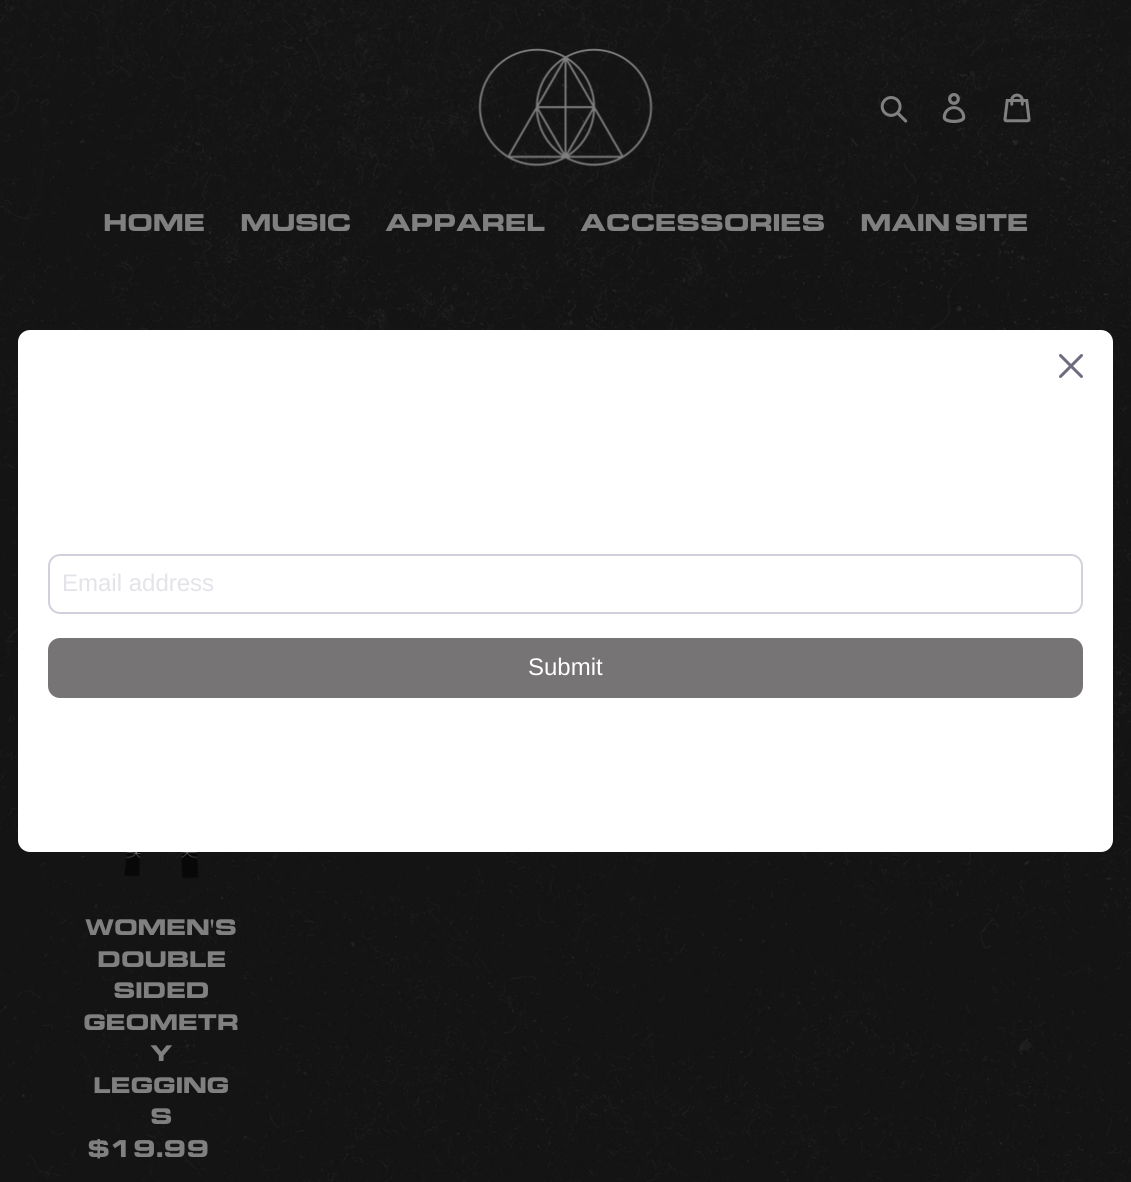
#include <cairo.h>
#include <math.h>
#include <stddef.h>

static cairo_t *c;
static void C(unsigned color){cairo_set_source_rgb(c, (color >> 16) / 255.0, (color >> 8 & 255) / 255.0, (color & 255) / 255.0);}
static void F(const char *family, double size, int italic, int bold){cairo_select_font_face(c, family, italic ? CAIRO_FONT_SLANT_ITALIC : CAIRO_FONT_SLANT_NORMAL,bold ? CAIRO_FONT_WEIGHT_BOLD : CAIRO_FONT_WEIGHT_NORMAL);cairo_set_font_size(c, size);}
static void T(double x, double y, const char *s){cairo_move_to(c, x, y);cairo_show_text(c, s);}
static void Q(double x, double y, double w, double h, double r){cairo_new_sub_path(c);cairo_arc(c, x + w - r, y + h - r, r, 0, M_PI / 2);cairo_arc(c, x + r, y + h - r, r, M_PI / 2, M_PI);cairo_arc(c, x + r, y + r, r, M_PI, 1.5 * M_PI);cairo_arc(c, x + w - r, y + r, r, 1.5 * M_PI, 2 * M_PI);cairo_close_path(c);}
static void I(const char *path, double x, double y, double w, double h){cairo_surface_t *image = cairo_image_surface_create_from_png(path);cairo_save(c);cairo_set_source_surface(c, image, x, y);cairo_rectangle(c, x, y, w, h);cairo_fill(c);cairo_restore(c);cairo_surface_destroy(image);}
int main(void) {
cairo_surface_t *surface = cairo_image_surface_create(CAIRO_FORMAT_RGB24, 1131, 1182);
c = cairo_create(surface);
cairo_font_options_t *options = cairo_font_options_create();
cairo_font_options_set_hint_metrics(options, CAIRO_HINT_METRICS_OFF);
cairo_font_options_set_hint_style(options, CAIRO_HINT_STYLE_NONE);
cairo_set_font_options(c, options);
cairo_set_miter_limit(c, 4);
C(0xffffff);
cairo_paint(c);
I("1.png",0,0,1131,1182);
I("2.png",478,48,175,119);
I("3.png",880,96,28,27);
I("4.png",942,93,24,30);
I("5.png",1003,93,28,30);
F("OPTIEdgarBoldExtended",21,0,1);
C(0x808080);
T(103,231,"HOME");
T(240,231,"MUSIC");
T(385,231,"APPAREL");
T(580,231,"ACCESSORIES");
T(860,231,"MAIN SITE");
C(0xffffff);
Q(18,330,1095,522,12);
cairo_fill(c);
I("6.png",1059,354,24,24);
Q(49,555,1033,58,11);
C(0xd1d1db);
cairo_stroke(c);
F("Liberation Sans",24,0,0);
C(0xe3e3e9);
T(62,591,"Email address");
C(0x767474);
Q(48,638,1035,60,12);
cairo_fill(c);
C(0xffffff);
T(528,675,"Submit");
I("7.png",124,852,75,27);
F("OPTIEdgarBoldExtended",19.5,0,1);
C(0x808080);
T(85,935,"WOMEN'S");
T(97,967,"DOUBLE");
T(113,998,"SIDED");
T(83,1030,"GEOMETR");
T(150,1061,"Y");
T(93,1093,"LEGGING");
T(150,1124,"S");
F("OPTIEdgarBoldExtended",21,0,1);
T(87,1157,"$19.99");
cairo_surface_write_to_png(surface, "o.png");
cairo_font_options_destroy(options);
cairo_destroy(c);
cairo_surface_destroy(surface);
return 0;
}
